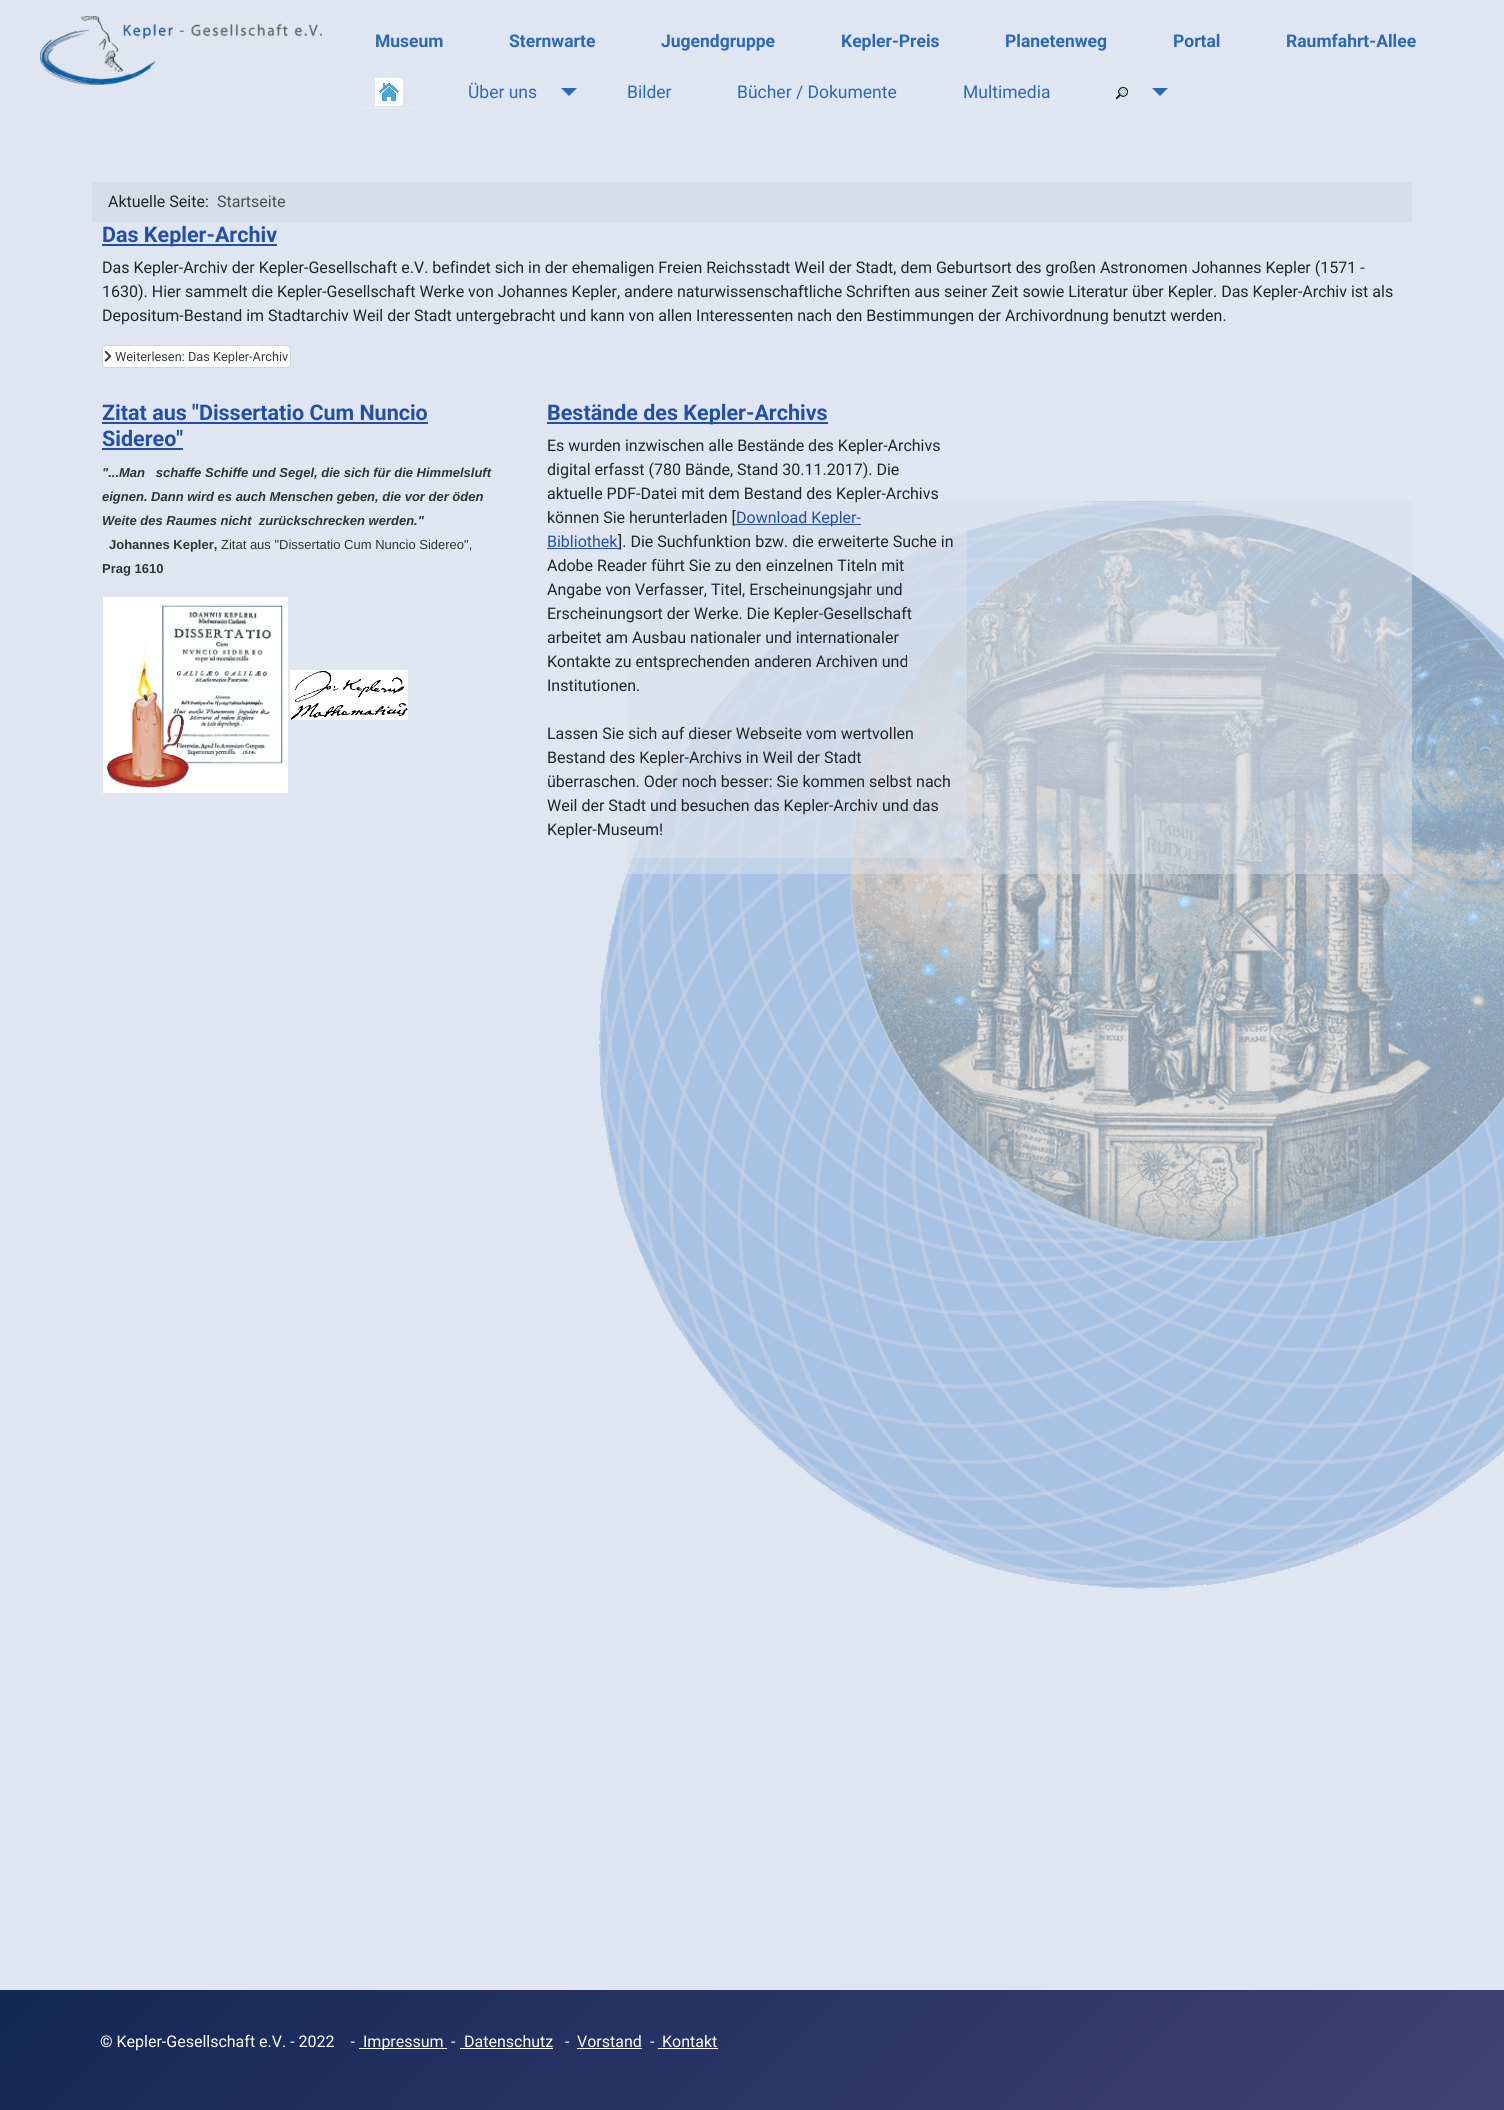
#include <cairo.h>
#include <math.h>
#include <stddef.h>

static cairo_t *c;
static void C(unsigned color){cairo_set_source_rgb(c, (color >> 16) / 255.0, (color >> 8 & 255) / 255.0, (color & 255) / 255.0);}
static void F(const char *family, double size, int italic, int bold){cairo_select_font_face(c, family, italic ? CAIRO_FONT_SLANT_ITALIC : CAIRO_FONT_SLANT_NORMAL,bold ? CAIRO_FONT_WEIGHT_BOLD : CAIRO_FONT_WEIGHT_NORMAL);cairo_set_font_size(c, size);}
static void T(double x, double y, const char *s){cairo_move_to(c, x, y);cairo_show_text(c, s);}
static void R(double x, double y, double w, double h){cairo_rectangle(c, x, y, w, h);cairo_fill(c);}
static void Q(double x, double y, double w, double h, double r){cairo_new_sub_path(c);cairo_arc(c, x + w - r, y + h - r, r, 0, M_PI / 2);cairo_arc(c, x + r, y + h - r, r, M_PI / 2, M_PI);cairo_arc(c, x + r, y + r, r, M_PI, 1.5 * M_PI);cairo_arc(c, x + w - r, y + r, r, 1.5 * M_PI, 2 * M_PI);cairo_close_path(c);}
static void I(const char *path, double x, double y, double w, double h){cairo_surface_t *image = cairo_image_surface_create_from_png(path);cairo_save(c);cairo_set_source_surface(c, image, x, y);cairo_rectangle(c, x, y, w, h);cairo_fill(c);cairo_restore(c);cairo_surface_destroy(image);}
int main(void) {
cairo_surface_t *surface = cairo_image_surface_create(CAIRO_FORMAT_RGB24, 1504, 2110);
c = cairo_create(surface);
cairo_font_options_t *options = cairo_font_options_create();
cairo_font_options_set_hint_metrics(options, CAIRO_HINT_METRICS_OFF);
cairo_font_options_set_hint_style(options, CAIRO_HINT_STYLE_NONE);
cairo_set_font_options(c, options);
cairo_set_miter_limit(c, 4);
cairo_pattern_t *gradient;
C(0xdfe5f1);
cairo_paint(c);
I("1.png",599,501,905,1088);
I("2.png",40,16,282,69);
F("Roboto",17.5,0,1);
C(0x2a69b8);
T(375,47,"Museum");
T(509,47,"Sternwarte");
T(661,47,"Jugendgruppe");
T(841,47,"Kepler-Preis");
T(1005,47,"Planetenweg");
T(1173,47,"Portal");
T(1286,47,"Raumfahrt-Allee");
I("3.png",375,78,28,28);
cairo_save(c);
cairo_new_path(c);
cairo_move_to(c,360,75);
cairo_line_to(c,418,75);
cairo_line_to(c,418,103);
cairo_curve_to(c,418,106.5,415.5,109,412,109);
cairo_line_to(c,366,109);
cairo_curve_to(c,362.5,109,360,106.5,360,103);
cairo_close_path(c);
cairo_clip(c);
C(0xe5e9f2);
R(360,107,58,2);
cairo_restore(c);
F("Roboto",17.5,0,0);
T(468,98,"Über uns");
cairo_new_path(c);
cairo_move_to(c,561,88);
cairo_line_to(c,577,88);
cairo_line_to(c,569,96);
cairo_close_path(c);
cairo_fill(c);
T(627,98,"Bilder");
T(737,98,"Bücher / Dokumente");
T(963,98,"Multimedia");
I("4.png",1116,87,12,12);
cairo_new_path(c);
cairo_move_to(c,1152,88);
cairo_line_to(c,1168,88);
cairo_line_to(c,1160,96);
cairo_close_path(c);
cairo_fill(c);
cairo_set_source_rgba(c,0.863,0.886,0.929,0.5);
R(627,501,785,373);
C(0xd7dde8);
R(92,182,1320,40);
F("Roboto",16,0,0);
C(0x22262a);
T(108,207,"Aktuelle Seite:");
C(0x484f56);
T(217,207,"Startseite");
C(0x224faa);
R(102,244,175,2);
F("Roboto",21.5,0,1);
T(102,242,"Das Kepler-Archiv");
F("Roboto",16,0,0);
C(0x22262a);
T(102,273,"Das Kepler-Archiv der Kepler-Gesellschaft e.V. befindet sich in der ehemaligen Freien Reichsstadt Weil der Stadt, dem Geburtsort des großen Astronomen Johannes Kepler (1571 -");
T(102,297,"1630). Hier sammelt die Kepler-Gesellschaft Werke von Johannes Kepler, andere naturwissenschaftliche Schriften aus seiner Zeit sowie Literatur über Kepler. Das Kepler-Archiv ist als");
T(102,321,"Depositum-Bestand im Stadtarchiv Weil der Stadt untergebracht und kann von allen Interessenten nach den Bestimmungen der Archivordnung benutzt werden.");
C(0xffffff);
Q(102.5,345.5,188,22,3.5);
cairo_fill_preserve(c);
C(0xced4da);
cairo_set_line_width(c,1);
cairo_stroke(c);
I("5.png",104,350,8,12);
F("Roboto",12.75,0,0);
C(0x353b41);
T(115,361,"Weiterlesen: Das Kepler-Archiv");
F("Roboto",21.5,0,1);
C(0x224faa);
T(102,420,"Zitat aus \"Dissertatio Cum Nuncio");
R(102,422,326,2);
T(102,446,"Sidereo\"");
R(102,448,81,2);
F("Liberation Sans",13,1,1);
C(0x333333);
T(102,477,"\"...Man   schaffe Schiffe und Segel, die sich für die Himmelsluft");
T(102,501,"eignen. Dann wird es auch Menschen geben, die vor der öden");
T(102,525,"Weite des Raumes nicht  zurückschrecken werden.\"");
F("Liberation Sans",13,0,1);
T(109,549,"Johannes Kepler,");
F("Liberation Sans",13,0,0);
T(221,549,"Zitat aus \"Dissertatio Cum Nuncio Sidereo\",");
F("Liberation Sans",13,0,1);
T(102,573,"Prag 1610");
I("6.png",103,597,185,196);
I("7.png",290,670,118,50);
cairo_set_source_rgba(c,0.863,0.886,0.929,0.5);
R(633,531,334,327);
C(0x224faa);
R(547,422,281,2);
F("Roboto",21.5,0,1);
T(547,420,"Bestände des Kepler-Archivs");
F("Roboto",16,0,0);
C(0x22262a);
T(547,451,"Es wurden inzwischen alle Bestände des Kepler-Archivs");
T(547,475,"digital erfasst (780 Bände, Stand 30.11.2017). Die");
T(547,499,"aktuelle PDF-Datei mit dem Bestand des Kepler-Archivs");
T(547,523,"können Sie herunterladen [");
C(0x224faa);
R(736,524,125,1);
T(736,523,"Download Kepler-");
T(547,547,"Bibliothek");
R(547,548,71,1);
C(0x22262a);
T(618,547,"]. Die Suchfunktion bzw. die erweiterte Suche in");
T(547,571,"Adobe Reader führt Sie zu den einzelnen Titeln mit");
T(547,595,"Angabe von Verfasser, Titel, Erscheinungsjahr und");
T(547,619,"Erscheinungsort der Werke. Die Kepler-Gesellschaft");
T(547,643,"arbeitet am Ausbau nationaler und internationaler");
T(547,667,"Kontakte zu entsprechenden anderen Archiven und");
T(547,691,"Institutionen.");
T(547,739,"Lassen Sie sich auf dieser Webseite vom wertvollen");
T(547,763,"Bestand des Kepler-Archivs in Weil der Stadt");
T(547,787,"überraschen. Oder noch besser: Sie kommen selbst nach");
T(547,811,"Weil der Stadt und besuchen das Kepler-Archiv und das");
T(547,835,"Kepler-Museum!");
gradient = cairo_pattern_create_linear(346,1644,1158,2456);
cairo_pattern_add_color_stop_rgba(gradient,0,0.067,0.157,0.333,1);
cairo_pattern_add_color_stop_rgba(gradient,1,0.259,0.251,0.467,1);
cairo_set_source(c,gradient);
cairo_pattern_destroy(gradient);
R(0,1990,1504,120);
C(0xffffff);
T(100,2047,"© Kepler-Gesellschaft e.V. - 2022    -");
R(359,2048,88,1);
T(363,2047,"Impressum");
T(451,2047,"-");
T(464,2047,"Datenschutz");
R(460,2048,93,1);
T(565,2047,"-");
T(577,2047,"Vorstand");
R(577,2048,65,1);
T(650,2047,"-");
T(662,2047,"Kontakt");
R(658,2048,60,1);
cairo_surface_write_to_png(surface, "o.png");
cairo_font_options_destroy(options);
cairo_destroy(c);
cairo_surface_destroy(surface);
return 0;
}
